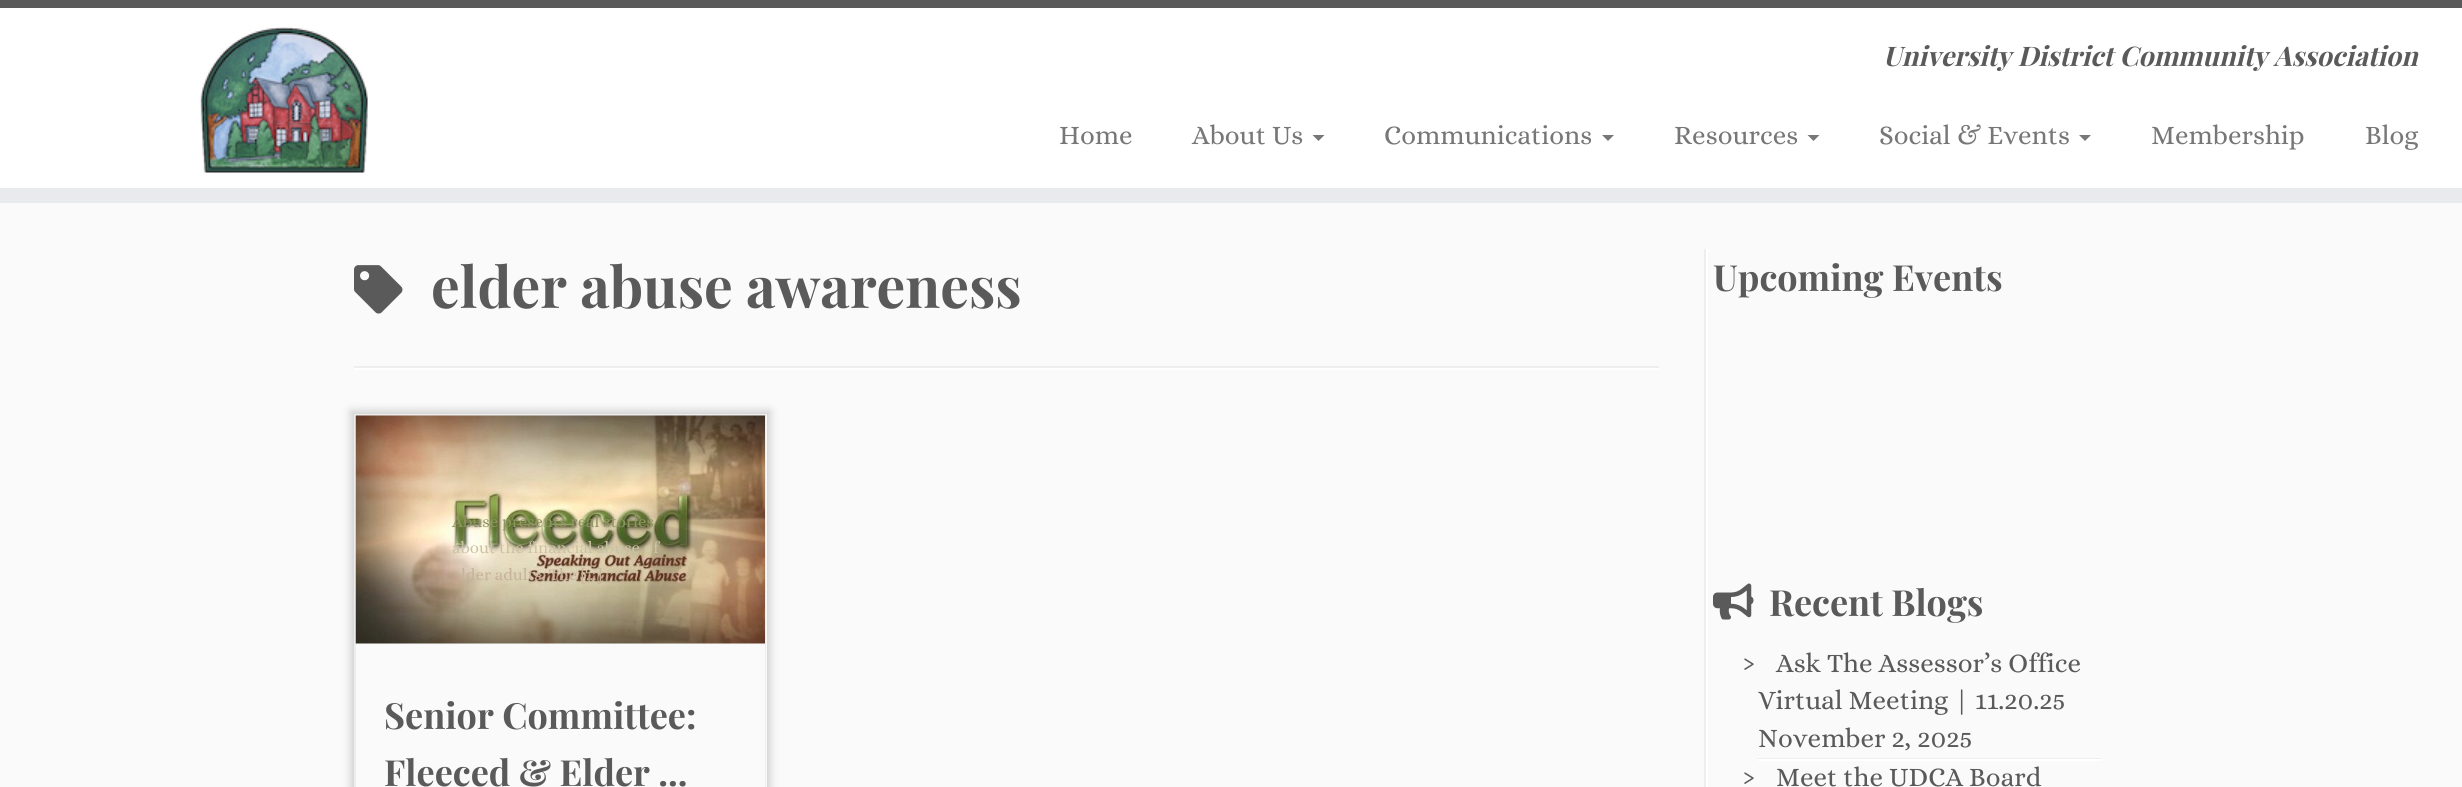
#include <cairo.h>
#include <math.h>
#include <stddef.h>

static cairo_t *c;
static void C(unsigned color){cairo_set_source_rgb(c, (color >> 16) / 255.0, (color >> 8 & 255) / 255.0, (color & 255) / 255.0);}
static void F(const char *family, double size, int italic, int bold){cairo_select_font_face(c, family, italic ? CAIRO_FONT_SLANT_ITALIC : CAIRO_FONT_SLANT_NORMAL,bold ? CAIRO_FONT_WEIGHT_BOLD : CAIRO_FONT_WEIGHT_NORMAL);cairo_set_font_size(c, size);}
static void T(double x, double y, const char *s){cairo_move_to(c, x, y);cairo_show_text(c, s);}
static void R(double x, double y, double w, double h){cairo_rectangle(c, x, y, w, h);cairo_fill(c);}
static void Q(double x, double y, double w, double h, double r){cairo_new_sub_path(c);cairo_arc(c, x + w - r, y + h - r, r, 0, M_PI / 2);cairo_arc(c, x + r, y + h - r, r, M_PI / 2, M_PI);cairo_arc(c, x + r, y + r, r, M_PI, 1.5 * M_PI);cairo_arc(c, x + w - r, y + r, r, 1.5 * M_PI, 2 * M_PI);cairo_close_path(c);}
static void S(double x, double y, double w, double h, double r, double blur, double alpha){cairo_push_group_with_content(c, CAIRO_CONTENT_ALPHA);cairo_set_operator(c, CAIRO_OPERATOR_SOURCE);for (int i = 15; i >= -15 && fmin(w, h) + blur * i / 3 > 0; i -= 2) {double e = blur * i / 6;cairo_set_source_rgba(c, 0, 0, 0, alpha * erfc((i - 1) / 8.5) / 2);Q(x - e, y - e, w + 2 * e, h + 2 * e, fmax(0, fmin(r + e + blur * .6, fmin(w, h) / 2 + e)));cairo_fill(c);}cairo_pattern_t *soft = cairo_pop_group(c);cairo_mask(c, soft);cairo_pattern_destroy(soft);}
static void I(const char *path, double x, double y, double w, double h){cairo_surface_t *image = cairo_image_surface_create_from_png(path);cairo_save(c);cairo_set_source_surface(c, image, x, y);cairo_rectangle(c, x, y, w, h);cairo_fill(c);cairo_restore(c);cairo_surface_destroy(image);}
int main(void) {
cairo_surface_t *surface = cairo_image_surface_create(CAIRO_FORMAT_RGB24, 2462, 787);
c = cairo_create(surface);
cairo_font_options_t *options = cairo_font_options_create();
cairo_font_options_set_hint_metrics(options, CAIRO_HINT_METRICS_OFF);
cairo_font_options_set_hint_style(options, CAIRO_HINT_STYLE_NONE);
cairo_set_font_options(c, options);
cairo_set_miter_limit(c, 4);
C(0xfafafa);
cairo_paint(c);
C(0xffffff);
R(0,8,2462,180);
C(0x5a5a5a);
R(0,0,2462,8);
C(0xe9eaee);
R(0,188,2462,15);
I("1.png",200,27,168,146);
F("Playfair Display",27,1,1);
C(0x5a5a5a);
T(1883,66,"University District Community Association");
F("Alice",27,0,0);
C(0x777777);
T(1059,144,"Home");
T(1192,144,"About Us");
cairo_new_path(c);
cairo_move_to(c,1312.5,135);
cairo_line_to(c,1324.5,135);
cairo_line_to(c,1318.5,141);
cairo_close_path(c);
cairo_fill(c);
T(1384,144,"Communications");
cairo_new_path(c);
cairo_move_to(c,1602,135);
cairo_line_to(c,1614,135);
cairo_line_to(c,1608,141);
cairo_close_path(c);
cairo_fill(c);
T(1674,144,"Resources");
cairo_new_path(c);
cairo_move_to(c,1807.5,135);
cairo_line_to(c,1819.5,135);
cairo_line_to(c,1813.5,141);
cairo_close_path(c);
cairo_fill(c);
T(1879,144,"Social & Events");
cairo_new_path(c);
cairo_move_to(c,2079,135);
cairo_line_to(c,2091,135);
cairo_line_to(c,2085,141);
cairo_close_path(c);
cairo_fill(c);
T(2151,144,"Membership");
T(2365,144,"Blog");
I("2.png",354,265,49,49);
F("Playfair Display",57,0,1);
C(0x5a5a5a);
T(431,308,"elder abuse awareness");
C(0xeeeeee);
R(354,366,1305,2);
C(0xffffff);
R(354,368,1305,2);
cairo_save(c);
cairo_set_fill_rule(c,CAIRO_FILL_RULE_EVEN_ODD);
cairo_new_path(c);
cairo_move_to(c,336,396);
cairo_line_to(c,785,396);
cairo_line_to(c,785,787);
cairo_line_to(c,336,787);
cairo_close_path(c);
cairo_move_to(c,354,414);
cairo_line_to(c,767,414);
cairo_line_to(c,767,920);
cairo_line_to(c,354,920);
cairo_close_path(c);
cairo_clip(c);
C(0xcccccc);
S(351,411,419,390,0,4.5,1);
cairo_restore(c);
C(0xeeeeee);
R(354,414,413,2);
cairo_new_path(c);
cairo_move_to(c,766,414);
cairo_line_to(c,766,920);
cairo_line_to(c,765,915);
cairo_line_to(c,765,416);
cairo_close_path(c);
cairo_fill(c);
cairo_new_path(c);
cairo_move_to(c,354,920);
cairo_line_to(c,354,414);
cairo_line_to(c,356,416);
cairo_line_to(c,356,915);
cairo_close_path(c);
cairo_fill(c);
I("3.png",355,415,410,229);
F("Alice",16.75,0,0);
C(0x909564);
T(452,527,"Abuse presents real stories");
C(0xcbc3a5);
T(452,553,"about the financial abuse of");
C(0xc6b49a);
T(461,580,"lder adults. The […]");
F("Playfair Display",36,0,1);
C(0x5a5a5a);
T(384,729,"Senior Committee:");
T(384,786,"Fleeced & Elder ...");
C(0xeeeeee);
R(1704,249,2,538);
C(0xffffff);
R(1706,249,2,538);
C(0x5a5a5a);
T(1713,291,"Upcoming Events");
I("4.png",1713,583,41,37);
T(1769,616,"Recent Blogs");
C(0xeeeeee);
R(1758,758,344,1);
F("Alice",27,0,0);
C(0x5a5a5a);
T(1743,672,"›");
T(1776,672,"Ask The Assessor’s Office");
T(1758,709,"Virtual Meeting | 11.20.25");
T(1758,747,"November 2, 2025");
C(0xffffff);
R(1758,759,344,2);
C(0x5a5a5a);
T(1743,786,"›");
T(1776,786,"Meet the UDCA Board");
cairo_surface_write_to_png(surface, "o.png");
cairo_font_options_destroy(options);
cairo_destroy(c);
cairo_surface_destroy(surface);
return 0;
}
